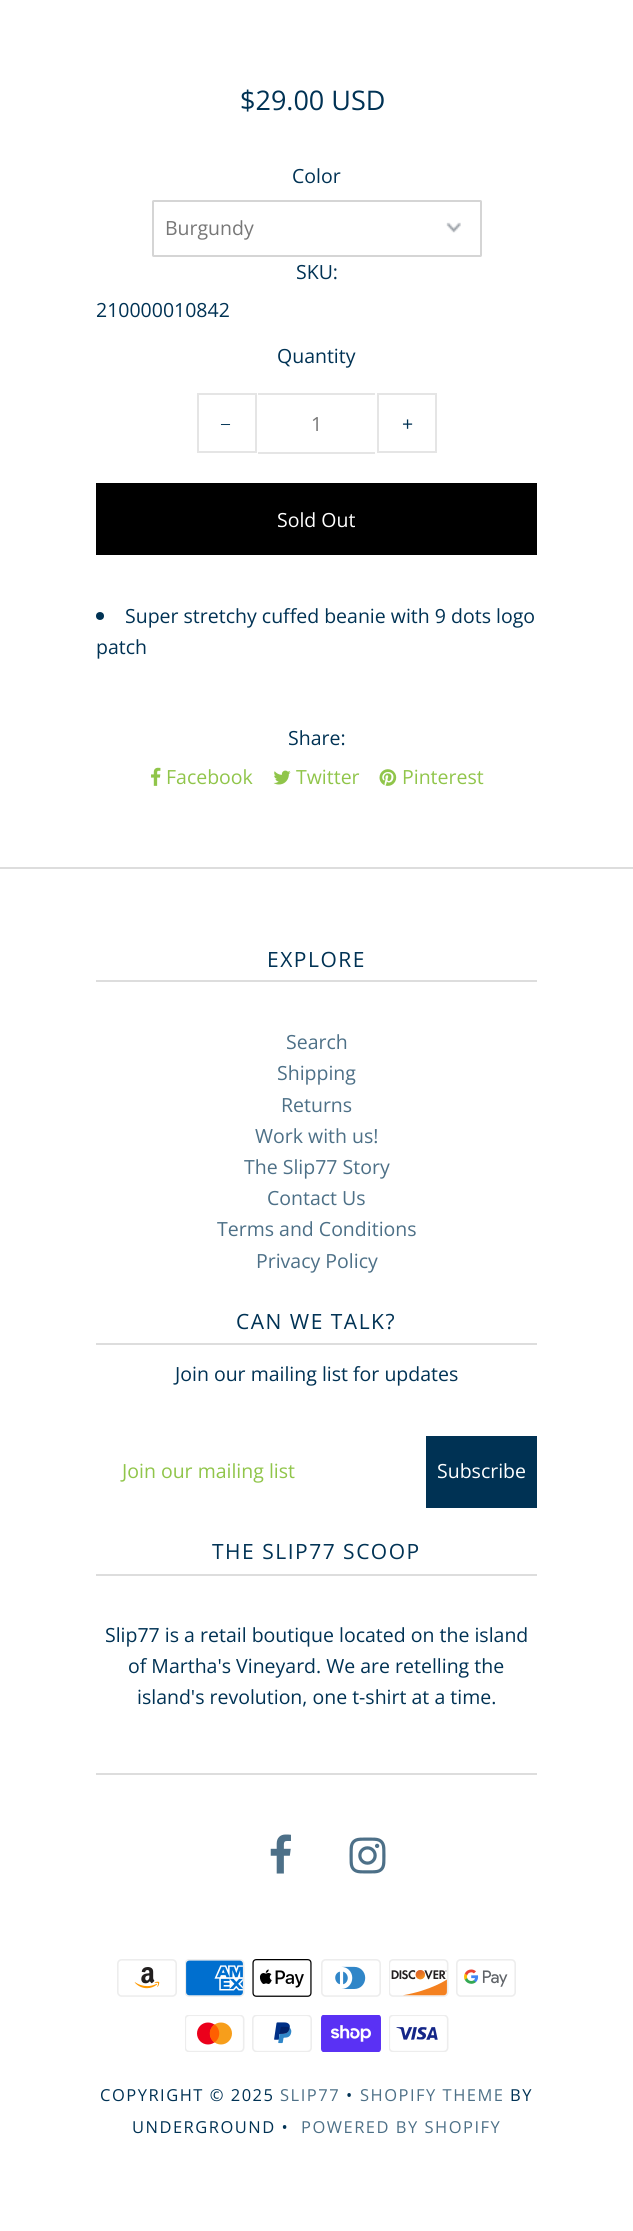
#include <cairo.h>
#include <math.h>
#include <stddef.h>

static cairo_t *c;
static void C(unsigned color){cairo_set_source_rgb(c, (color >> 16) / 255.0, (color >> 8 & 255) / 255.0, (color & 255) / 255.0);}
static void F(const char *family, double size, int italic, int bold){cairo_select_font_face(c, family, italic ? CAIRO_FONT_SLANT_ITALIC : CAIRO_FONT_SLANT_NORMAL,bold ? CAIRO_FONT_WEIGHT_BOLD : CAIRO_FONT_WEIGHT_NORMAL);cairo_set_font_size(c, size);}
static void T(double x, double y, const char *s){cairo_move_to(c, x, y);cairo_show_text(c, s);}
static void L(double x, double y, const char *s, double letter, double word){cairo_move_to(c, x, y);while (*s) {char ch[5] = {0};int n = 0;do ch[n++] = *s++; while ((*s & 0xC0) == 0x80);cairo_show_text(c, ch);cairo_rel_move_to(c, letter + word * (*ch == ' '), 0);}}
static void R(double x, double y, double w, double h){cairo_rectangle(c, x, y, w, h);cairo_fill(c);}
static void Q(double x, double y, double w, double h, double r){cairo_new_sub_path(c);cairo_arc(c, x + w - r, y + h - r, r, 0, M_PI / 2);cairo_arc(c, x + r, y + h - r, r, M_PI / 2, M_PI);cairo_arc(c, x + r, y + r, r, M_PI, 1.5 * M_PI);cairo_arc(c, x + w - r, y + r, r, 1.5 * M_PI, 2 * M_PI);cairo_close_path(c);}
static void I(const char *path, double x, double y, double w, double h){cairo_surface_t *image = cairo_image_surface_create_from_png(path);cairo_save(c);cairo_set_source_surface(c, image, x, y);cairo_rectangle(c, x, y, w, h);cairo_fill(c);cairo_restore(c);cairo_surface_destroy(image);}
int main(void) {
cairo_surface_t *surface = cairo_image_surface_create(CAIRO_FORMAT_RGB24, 633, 2231);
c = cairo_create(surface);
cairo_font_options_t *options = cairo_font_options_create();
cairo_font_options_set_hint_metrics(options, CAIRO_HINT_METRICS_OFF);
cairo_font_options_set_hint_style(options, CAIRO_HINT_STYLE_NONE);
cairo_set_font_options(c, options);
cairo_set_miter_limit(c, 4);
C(0xffffff);
cairo_paint(c);
F("Open Sans",27,0,0);
C(0x003254);
T(240,110,"$29.00 USD");
F("Open Sans",19.5,0,0);
T(292,183,"Color");
I("1.png",446,222,15,11);
Q(153,201,328,55,.5);
C(0xd5d5d5);
cairo_stroke(c);
C(0x777777);
T(165,235,"Burgundy");
C(0x003254);
T(296,279,"SKU:");
T(96,317,"210000010842");
T(277,363,"Quantity");
cairo_rectangle(c,198,394,58,58);
C(0xe5e5e5);
cairo_stroke(c);
F("Liberation Serif",19.5,0,0);
C(0x003254);
T(220,431,"−");
C(0xe5e5e5);
R(258,393,117,2);
R(258,452,117,2);
F("Open Sans",19.5,0,0);
C(0x777777);
T(311,431,"1");
cairo_rectangle(c,378,394,58,58);
C(0xe5e5e5);
cairo_stroke(c);
C(0x003254);
T(402,431,"+");
C(0x000000);
R(96,483,441,72);
C(0xffffff);
T(277,527,"Sold Out");
C(0x003254);
cairo_new_path(c);
cairo_arc(c,100,616,4,0,2 * M_PI);
cairo_fill(c);
T(125,623,"Super stretchy cuffed beanie with 9 dots logo");
T(96,654,"patch");
T(288,745,"Share:");
I("2.png",151,767,10,19);
C(0x90c54a);
T(166,784,"Facebook");
I("3.png",273,770,18,15);
T(296,784,"Twitter");
I("4.png",379,769,18,17);
T(402,784,"Pinterest");
C(0xdddddd);
R(0,867,633,2);
R(96,980,441,2);
F("Open Sans",21,0,0);
C(0x003254);
L(267,967,"EXPLORE",1.5,0);
F("Open Sans",19.5,0,0);
C(0x4d7087);
T(286,1049,"Search");
T(277,1080,"Shipping");
T(281,1112,"Returns");
T(255,1143,"Work with us!");
T(244,1174,"The Slip77 Story");
T(267,1205,"Contact Us");
T(217,1236,"Terms and Conditions");
T(256,1268,"Privacy Policy");
C(0xdddddd);
R(96,1343,441,2);
F("Open Sans",21,0,0);
C(0x003254);
L(236,1329,"CAN WE TALK?",1.5,0);
F("Open Sans",19.5,0,0);
T(175,1381,"Join our mailing list for updates");
C(0x90c54a);
T(122,1478,"Join our mailing list");
C(0x003254);
R(426,1436,111,72);
C(0xffffff);
T(437,1478,"Subscribe");
C(0xdddddd);
R(96,1574,441,2);
F("Open Sans",21,0,0);
C(0x003254);
L(212,1559,"THE SLIP77 SCOOP",1.5,0);
F("Open Sans",19.5,0,0);
T(105,1642,"Slip77 is a retail boutique located on the island");
T(128,1673,"of Martha's Vineyard. We are retelling the");
T(137,1704,"island's revolution, one t-shirt at a time.");
C(0xdddddd);
R(96,1773,441,2);
I("5.png",270,1834,21,40);
I("6.png",349,1837,37,37);
I("7.png",117,1959,60,38);
I("8.png",185,1959,60,38);
I("9.png",252,1959,60,38);
I("10.png",321,1959,60,38);
I("11.png",389,1959,60,38);
I("12.png",456,1959,60,38);
I("13.png",185,2015,60,37);
I("14.png",252,2015,60,37);
I("15.png",321,2015,60,37);
I("16.png",389,2015,60,37);
F("Open Sans",16.5,0,0);
C(0x003254);
L(100,2101,"COPYRIGHT © 2025",1.5,0);
C(0x4d7087);
L(280,2101,"SLIP77",1.5,0);
C(0x003254);
L(346,2101,"•",1.5,0);
C(0x4d7087);
L(360,2101,"SHOPIFY THEME",1.5,0);
C(0x003254);
L(510,2101,"BY",1.5,0);
L(132,2133,"UNDERGROUND •",1.5,0);
C(0x4d7087);
L(301,2133,"POWERED BY SHOPIFY",1.5,0);
cairo_surface_write_to_png(surface, "o.png");
cairo_font_options_destroy(options);
cairo_destroy(c);
cairo_surface_destroy(surface);
return 0;
}
